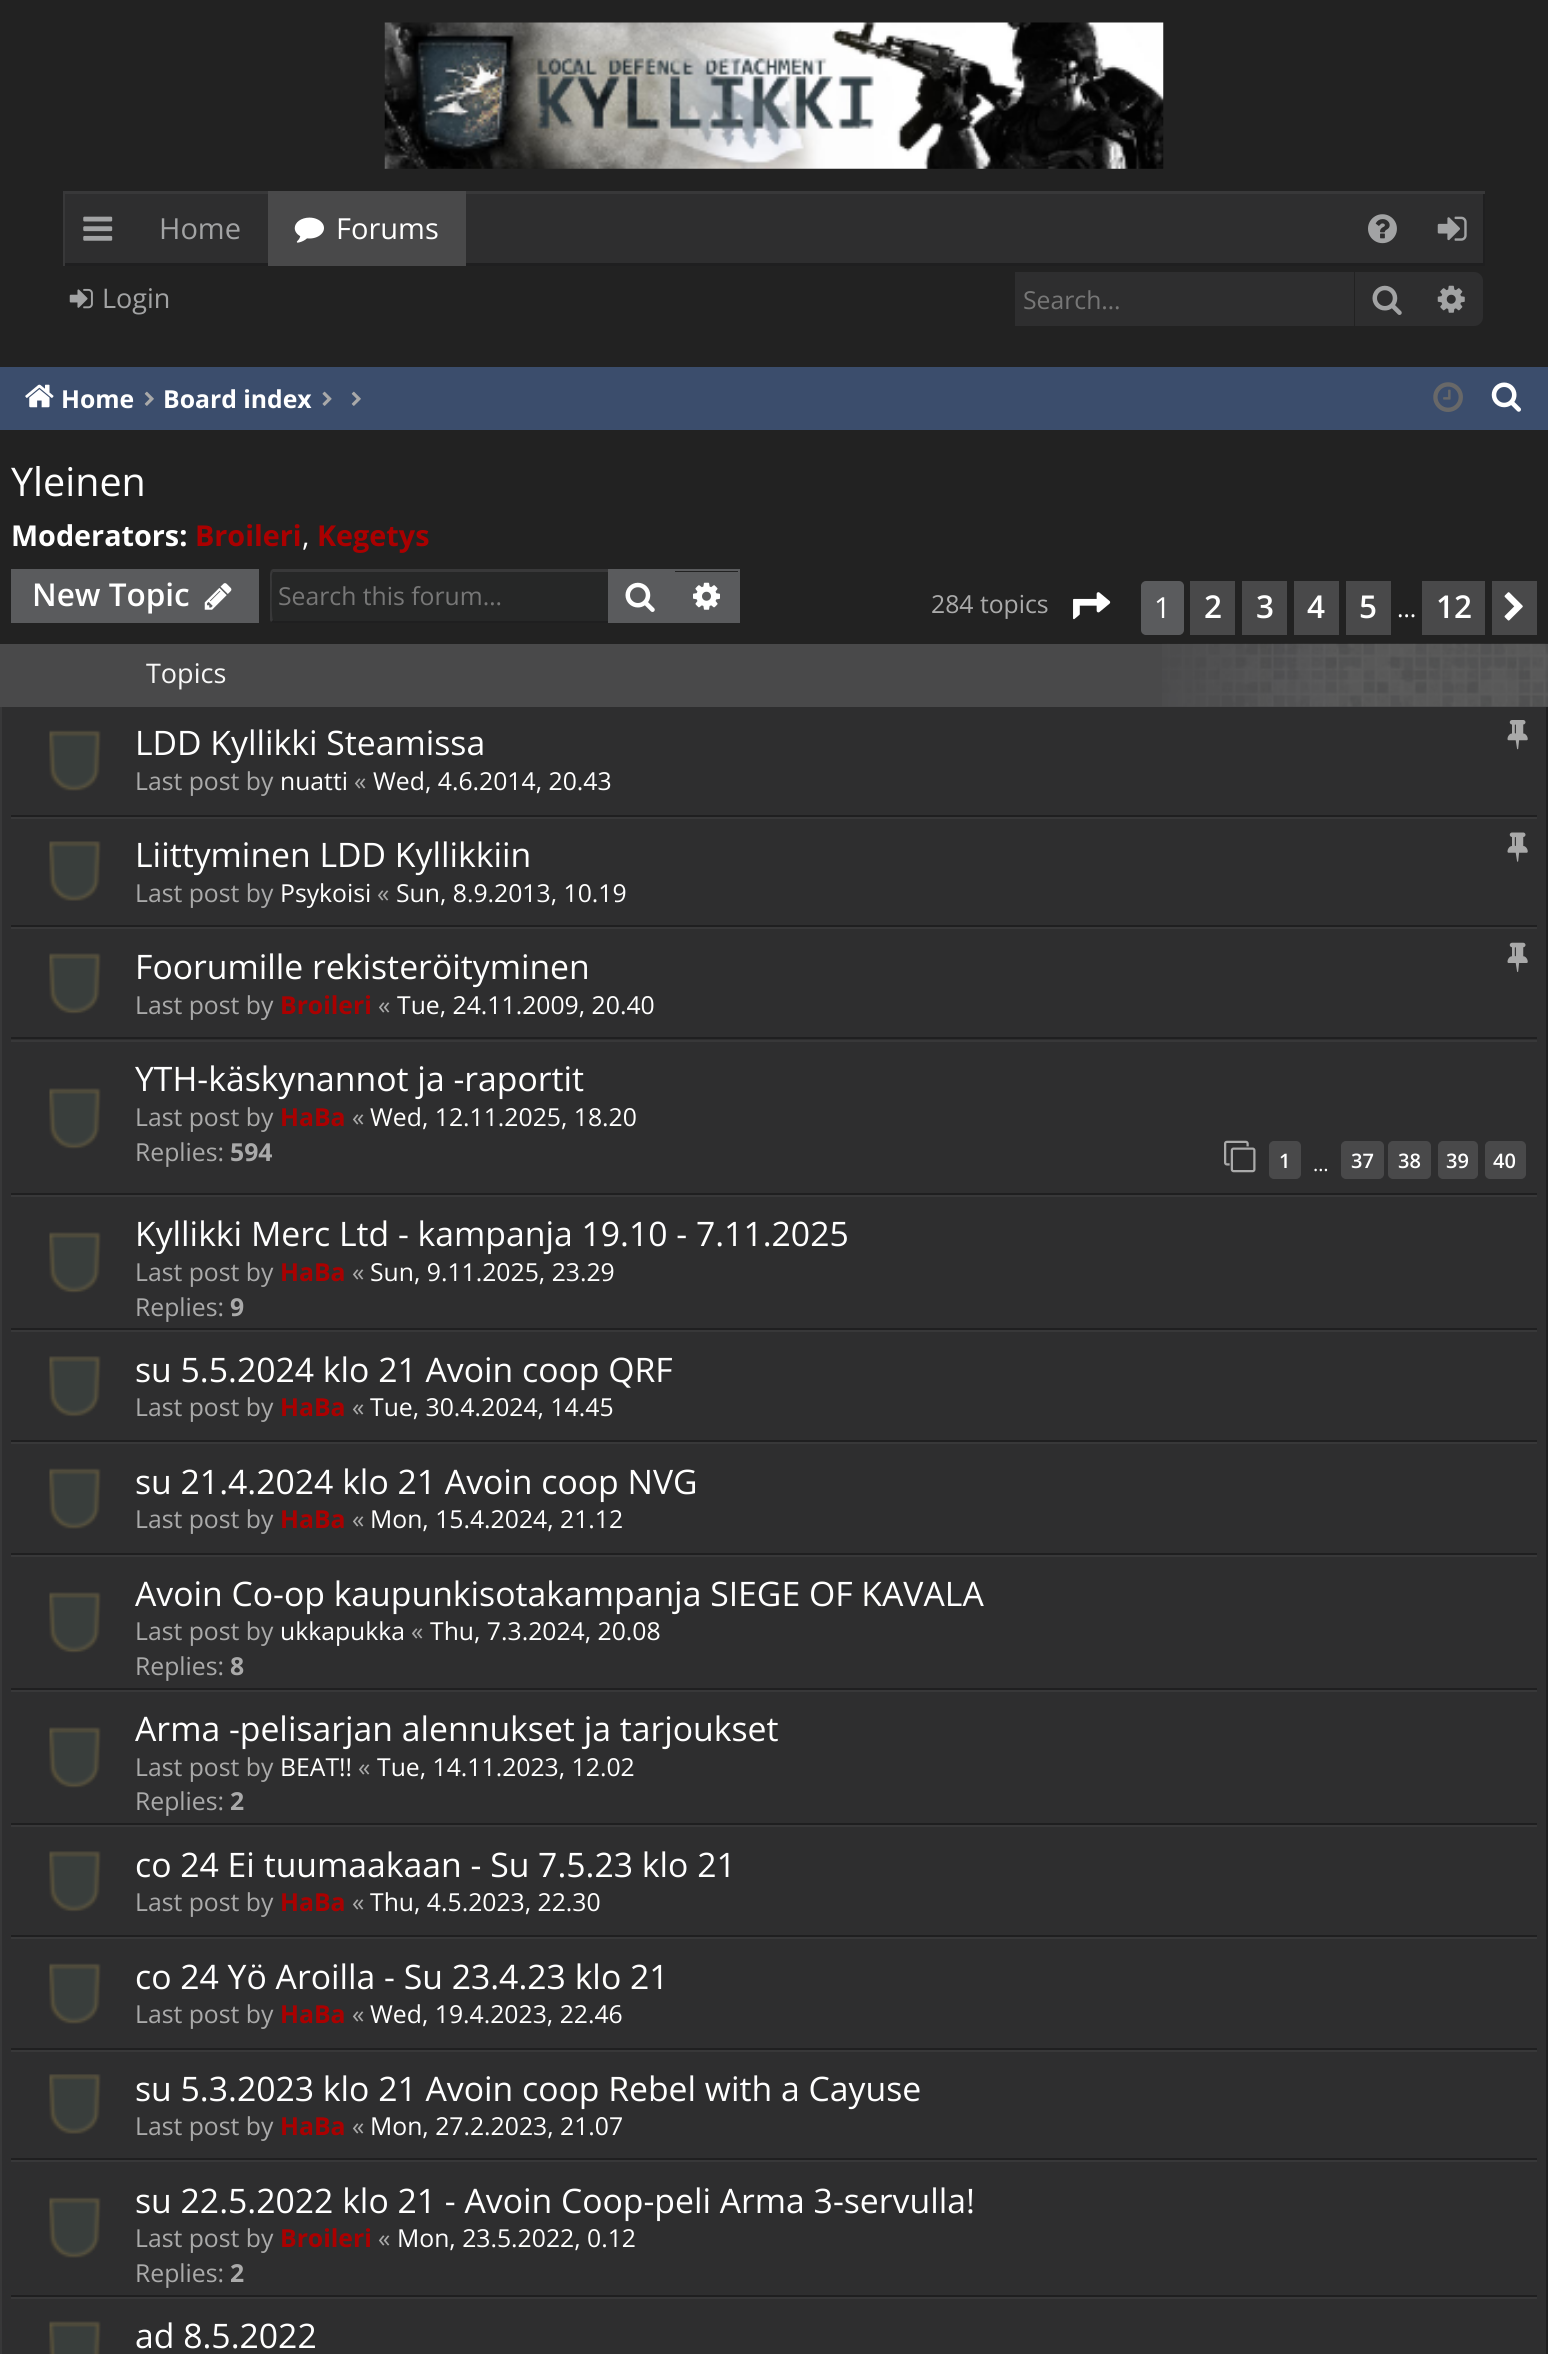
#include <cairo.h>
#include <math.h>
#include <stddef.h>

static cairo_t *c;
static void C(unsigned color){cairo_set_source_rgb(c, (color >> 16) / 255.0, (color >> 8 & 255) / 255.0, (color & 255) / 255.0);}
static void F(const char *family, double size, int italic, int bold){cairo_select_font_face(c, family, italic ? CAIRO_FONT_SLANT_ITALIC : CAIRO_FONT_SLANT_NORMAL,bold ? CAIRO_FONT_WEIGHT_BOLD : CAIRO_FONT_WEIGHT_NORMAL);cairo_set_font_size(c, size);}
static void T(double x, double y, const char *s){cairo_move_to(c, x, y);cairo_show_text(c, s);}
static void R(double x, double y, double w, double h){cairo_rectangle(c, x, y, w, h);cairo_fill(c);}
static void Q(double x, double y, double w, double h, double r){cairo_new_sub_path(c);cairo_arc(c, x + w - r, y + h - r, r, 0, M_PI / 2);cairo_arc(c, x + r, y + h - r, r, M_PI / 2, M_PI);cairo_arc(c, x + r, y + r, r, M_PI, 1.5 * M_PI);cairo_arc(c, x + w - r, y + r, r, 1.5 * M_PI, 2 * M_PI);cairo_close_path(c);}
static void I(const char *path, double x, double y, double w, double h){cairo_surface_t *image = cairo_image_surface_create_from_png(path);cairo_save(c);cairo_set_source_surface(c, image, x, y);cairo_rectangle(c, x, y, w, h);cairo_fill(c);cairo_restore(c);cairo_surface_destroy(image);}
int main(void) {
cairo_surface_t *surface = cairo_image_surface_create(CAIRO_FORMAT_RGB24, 1548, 2354);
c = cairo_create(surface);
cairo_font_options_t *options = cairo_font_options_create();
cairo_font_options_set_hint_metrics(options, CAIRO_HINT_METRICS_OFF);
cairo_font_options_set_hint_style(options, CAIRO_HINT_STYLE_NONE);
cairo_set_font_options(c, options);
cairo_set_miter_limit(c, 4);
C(0x222222);
cairo_paint(c);
I("1.png",384,22,780,147);
C(0x2e2e2f);
R(65,194,1418,69);
cairo_save(c);
cairo_rectangle(c,63,191,1422,75);
cairo_clip(c);
C(0x1f1f20);
cairo_set_fill_rule(c,CAIRO_FILL_RULE_EVEN_ODD);
cairo_new_path(c);
cairo_move_to(c,-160,-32);
cairo_line_to(c,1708,-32);
cairo_line_to(c,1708,488);
cairo_line_to(c,-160,488);
cairo_close_path(c);
cairo_move_to(c,61,189);
cairo_line_to(c,1483,189);
cairo_line_to(c,1483,263);
cairo_line_to(c,61,263);
cairo_close_path(c);
cairo_fill(c);
C(0x383839);
cairo_new_path(c);
cairo_move_to(c,-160,-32);
cairo_line_to(c,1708,-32);
cairo_line_to(c,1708,488);
cairo_line_to(c,-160,488);
cairo_close_path(c);
cairo_move_to(c,65,194);
cairo_line_to(c,1487,194);
cairo_line_to(c,1487,268);
cairo_line_to(c,65,268);
cairo_close_path(c);
cairo_fill(c);
cairo_restore(c);
I("2.png",83,216,30,25);
F("Open Sans",29,0,0);
C(0xa2a3a4);
T(159,239,"Home");
C(0x49494a);
R(268,191,198,75);
I("3.png",294,217,30,26);
C(0xffffff);
T(336,239,"Forums");
I("4.png",1368,214,29,30);
I("5.png",1437,216,30,25);
I("6.png",69,288,24,21);
F("Open Sans",27,0,0);
C(0xa2a3a4);
T(102,308,"Login");
C(0x2e2e2f);
R(1015,272,339,54);
F("Open Sans",24.75,0,0);
C(0x777777);
T(1023,309,"Search…");
C(0x2e2e2f);
R(1355,272,65,54);
I("7.png",1372,285,30,30);
cairo_new_path(c);
cairo_move_to(c,1420,272);
cairo_line_to(c,1474,272);
cairo_curve_to(c,1479,272,1483,276,1483,281);
cairo_line_to(c,1483,317);
cairo_curve_to(c,1483,322,1479,326,1474,326);
cairo_line_to(c,1420,326);
cairo_close_path(c);
cairo_fill(c);
I("8.png",1437,285,28,28);
C(0x3b4d6c);
R(0,367,1548,63);
I("9.png",25,384,29,24);
F("Open Sans",24.75,0,1);
C(0xffffff);
T(61,408,"Home");
I("10.png",144,391,10,15);
T(163,408,"Board index");
I("11.png",322,391,10,15);
I("10.png",351,391,10,15);
I("12.png",1433,382,30,30);
I("13.png",1491,382,30,30);
F("Open Sans",39.5,0,0);
T(11,496,"Yleinen");
F("Open Sans",28.75,0,1);
T(11,546,"Moderators:");
C(0xaa0000);
T(195,546,"Broileri");
F("Open Sans",28.75,0,0);
C(0xffffff);
T(302,546,",");
F("Open Sans",28.75,0,1);
C(0xaa0000);
T(317,546,"Kegetys");
C(0x5a5b5d);
R(11,569,248,54);
F("Open Sans SemiBold",31.5,0,0);
C(0xffffff);
T(32,606,"New Topic");
I("14.png",204,583,28,27);
C(0x262727);
cairo_new_path(c);
cairo_move_to(c,274,572);
cairo_line_to(c,608,572);
cairo_line_to(c,608,621);
cairo_line_to(c,274,621);
cairo_curve_to(c,273,621,272,620,272,619);
cairo_line_to(c,272,574);
cairo_curve_to(c,272,573,273,572,274,572);
cairo_close_path(c);
cairo_fill(c);
C(0x383839);
cairo_new_path(c);
cairo_move_to(c,274,572);
cairo_line_to(c,273,572);
cairo_line_to(c,271,570);
cairo_line_to(c,273,569);
cairo_line_to(c,608,569);
cairo_line_to(c,608,572);
cairo_close_path(c);
cairo_fill(c);
C(0x1f1f20);
cairo_new_path(c);
cairo_move_to(c,608,623);
cairo_line_to(c,274,623);
cairo_line_to(c,271,622);
cairo_line_to(c,273,620);
cairo_line_to(c,274,621);
cairo_line_to(c,608,621);
cairo_close_path(c);
cairo_fill(c);
C(0x383839);
cairo_new_path(c);
cairo_move_to(c,270,574);
cairo_line_to(c,270,620);
cairo_line_to(c,271,622);
cairo_line_to(c,273,620);
cairo_curve_to(c,271,619,272,586,272,582);
cairo_curve_to(c,272,581,271,574,273,572);
cairo_line_to(c,271,570);
cairo_close_path(c);
cairo_fill(c);
F("Open Sans",24.75,0,0);
C(0x777777);
T(278,605,"Search this forum…");
C(0x5a5b5d);
R(608,569,67,54);
I("15.png",625,582,30,30);
R(675,572,63,49);
R(675,569,65,2);
R(738,569,2,54);
R(675,621,65,2);
I("16.png",693,582,27,28);
C(0xaaaaaa);
T(931,613,"284 topics");
I("17.png",1073,592,38,28);
C(0x5a5b5d);
Q(1142,582,41,52,4);
cairo_fill_preserve(c);
cairo_stroke(c);
F("Open Sans",29,0,0);
C(0xffffff);
T(1154,618,"1");
C(0x49494a);
R(1190,581,45,54);
F("Open Sans SemiBold",31.5,0,0);
C(0xffffff);
T(1204,618,"2");
C(0x49494a);
R(1242,581,45,54);
C(0xffffff);
T(1256,618,"3");
C(0x49494a);
R(1294,581,45,54);
C(0xffffff);
T(1307,618,"4");
C(0x49494a);
R(1346,581,45,54);
C(0xffffff);
T(1359,618,"5");
F("Open Sans",24.75,0,0);
T(1397,617,"…");
C(0x49494a);
R(1422,581,63,54);
F("Open Sans SemiBold",31.5,0,0);
C(0xffffff);
T(1436,618,"12");
C(0x49494a);
R(1492,581,45,54);
I("18.png",1504,592,19,29);
C(0x2e2e2f);
R(2,707,1544,1647);
C(0x1f1f20);
R(1546,707,2,1647);
C(0x383839);
R(0,707,2,1647);
C(0x49494a);
R(0,644,1548,63);
I("19.png",1162,643,386,64);
F("Open Sans",27,0,0);
C(0xf7f7f7);
T(146,683,"Topics");
C(0x1f1f20);
R(11,815,1526,2);
I("20.png",49,730,52,61);
F("Open Sans",33.75,0,0);
C(0xffffff);
T(135,755,"LDD Kyllikki Steamissa");
I("21.png",1507,720,21,30);
F("Open Sans",24.75,0,0);
C(0xaaaaaa);
T(135,790,"Last post by");
C(0xffffff);
T(280,790,"nuatti");
C(0xaaaaaa);
T(354,790,"«");
C(0xffffff);
T(373,790,"Wed, 4.6.2014, 20.43");
C(0x383839);
R(11,817,1526,2);
C(0x1f1f20);
R(11,925,1526,2);
I("22.png",49,841,52,60);
F("Open Sans",33.75,0,0);
C(0xffffff);
T(135,867,"Liittyminen LDD Kyllikkiin");
I("23.png",1507,832,21,30);
F("Open Sans",24.75,0,0);
C(0xaaaaaa);
T(135,902,"Last post by");
C(0xffffff);
T(280,902,"Psykoisi");
C(0xaaaaaa);
T(377,902,"«");
C(0xffffff);
T(396,902,"Sun, 8.9.2013, 10.19");
C(0x383839);
R(11,927,1526,2);
C(0x1f1f20);
R(11,1037,1526,2);
I("24.png",49,953,52,61);
F("Open Sans",33.75,0,0);
C(0xffffff);
T(135,979,"Foorumille rekisteröityminen");
I("25.png",1507,942,21,30);
F("Open Sans",24.75,0,0);
C(0xaaaaaa);
T(135,1014,"Last post by");
F("Open Sans",24.75,0,1);
C(0xaa0000);
T(280,1014,"Broileri");
F("Open Sans",24.75,0,0);
C(0xaaaaaa);
T(378,1014,"«");
C(0xffffff);
T(397,1014,"Tue, 24.11.2009, 20.40");
C(0x383839);
R(11,1040,1526,2);
C(0x1f1f20);
R(11,1193,1526,2);
I("24.png",49,1088,52,61);
F("Open Sans",33.75,0,0);
C(0xffffff);
T(135,1091,"YTH-käskynannot ja -raportit");
F("Open Sans",24.75,0,0);
C(0xaaaaaa);
T(135,1126,"Last post by");
F("Open Sans",24.75,0,1);
C(0xaa0000);
T(280,1126,"HaBa");
F("Open Sans",24.75,0,0);
C(0xaaaaaa);
T(352,1126,"«");
C(0xffffff);
T(370,1126,"Wed, 12.11.2025, 18.20");
C(0xaaaaaa);
T(135,1161,"Replies:");
F("Open Sans",24.75,0,1);
T(230,1161,"594");
I("26.png",1224,1140,32,33);
C(0x49494a);
Q(1270,1142,30,36,4);
cairo_fill_preserve(c);
cairo_stroke(c);
F("Open Sans SemiBold",20,0,0);
C(0xffffff);
T(1279,1168,"1");
C(0x49494a);
Q(1342,1142,41,36,4);
cairo_fill_preserve(c);
cairo_stroke(c);
C(0xffffff);
T(1351,1168,"37");
C(0x49494a);
Q(1389,1142,41,36,4);
cairo_fill_preserve(c);
cairo_stroke(c);
C(0xffffff);
T(1398,1168,"38");
C(0x49494a);
Q(1439,1142,38,36,4);
cairo_fill_preserve(c);
cairo_stroke(c);
C(0xffffff);
T(1446,1168,"39");
C(0x49494a);
Q(1486,1142,39,36,4);
cairo_fill_preserve(c);
cairo_stroke(c);
C(0xffffff);
T(1493,1168,"40");
F("Open Sans",20,0,0);
T(1313,1171,"…");
C(0x383839);
R(11,1195,1526,2);
C(0x1f1f20);
R(11,1328,1526,2);
I("24.png",49,1232,52,61);
F("Open Sans",33.75,0,0);
C(0xffffff);
T(135,1246,"Kyllikki Merc Ltd - kampanja 19.10 - 7.11.2025");
F("Open Sans",24.75,0,0);
C(0xaaaaaa);
T(135,1281,"Last post by");
F("Open Sans",24.75,0,1);
C(0xaa0000);
T(280,1281,"HaBa");
F("Open Sans",24.75,0,0);
C(0xaaaaaa);
T(352,1281,"«");
C(0xffffff);
T(370,1281,"Sun, 9.11.2025, 23.29");
C(0xaaaaaa);
T(135,1316,"Replies:");
F("Open Sans",24.75,0,1);
T(230,1316,"9");
C(0x383839);
R(11,1330,1526,2);
C(0x1f1f20);
R(11,1440,1526,2);
I("27.png",49,1356,52,61);
F("Open Sans",33.75,0,0);
C(0xffffff);
T(135,1382,"su 5.5.2024 klo 21 Avoin coop QRF");
F("Open Sans",24.75,0,0);
C(0xaaaaaa);
T(135,1416,"Last post by");
F("Open Sans",24.75,0,1);
C(0xaa0000);
T(280,1416,"HaBa");
F("Open Sans",24.75,0,0);
C(0xaaaaaa);
T(352,1416,"«");
C(0xffffff);
T(370,1416,"Tue, 30.4.2024, 14.45");
C(0x383839);
R(11,1442,1526,2);
C(0x1f1f20);
R(11,1553,1526,2);
I("20.png",49,1468,52,61);
F("Open Sans",33.75,0,0);
C(0xffffff);
T(135,1494,"su 21.4.2024 klo 21 Avoin coop NVG");
F("Open Sans",24.75,0,0);
C(0xaaaaaa);
T(135,1528,"Last post by");
F("Open Sans",24.75,0,1);
C(0xaa0000);
T(280,1528,"HaBa");
F("Open Sans",24.75,0,0);
C(0xaaaaaa);
T(352,1528,"«");
C(0xffffff);
T(370,1528,"Mon, 15.4.2024, 21.12");
C(0x383839);
R(11,1555,1526,2);
C(0x1f1f20);
R(11,1688,1526,2);
I("24.png",49,1592,52,61);
F("Open Sans",33.75,0,0);
C(0xffffff);
T(135,1606,"Avoin Co-op kaupunkisotakampanja SIEGE OF KAVALA");
F("Open Sans",24.75,0,0);
C(0xaaaaaa);
T(135,1640,"Last post by");
C(0xffffff);
T(280,1640,"ukkapukka");
C(0xaaaaaa);
T(411,1640,"«");
C(0xffffff);
T(430,1640,"Thu, 7.3.2024, 20.08");
C(0xaaaaaa);
T(135,1675,"Replies:");
F("Open Sans",24.75,0,1);
T(230,1675,"8");
C(0x383839);
R(11,1690,1526,2);
C(0x1f1f20);
R(11,1823,1526,2);
I("24.png",49,1727,52,61);
F("Open Sans",33.75,0,0);
C(0xffffff);
T(135,1741,"Arma -pelisarjan alennukset ja tarjoukset");
F("Open Sans",24.75,0,0);
C(0xaaaaaa);
T(135,1776,"Last post by");
C(0xffffff);
T(280,1776,"BEAT!!");
C(0xaaaaaa);
T(358,1776,"«");
C(0xffffff);
T(377,1776,"Tue, 14.11.2023, 12.02");
C(0xaaaaaa);
T(135,1810,"Replies:");
F("Open Sans",24.75,0,1);
T(230,1810,"2");
C(0x383839);
R(11,1825,1526,2);
C(0x1f1f20);
R(11,1935,1526,2);
I("27.png",49,1851,52,61);
F("Open Sans",33.75,0,0);
C(0xffffff);
T(135,1877,"co 24 Ei tuumaakaan - Su 7.5.23 klo 21");
F("Open Sans",24.75,0,0);
C(0xaaaaaa);
T(135,1911,"Last post by");
F("Open Sans",24.75,0,1);
C(0xaa0000);
T(280,1911,"HaBa");
F("Open Sans",24.75,0,0);
C(0xaaaaaa);
T(352,1911,"«");
C(0xffffff);
T(370,1911,"Thu, 4.5.2023, 22.30");
C(0x383839);
R(11,1937,1526,2);
C(0x1f1f20);
R(11,2048,1526,2);
I("20.png",49,1963,52,61);
F("Open Sans",33.75,0,0);
C(0xffffff);
T(135,1989,"co 24 Yö Aroilla - Su 23.4.23 klo 21");
F("Open Sans",24.75,0,0);
C(0xaaaaaa);
T(135,2023,"Last post by");
F("Open Sans",24.75,0,1);
C(0xaa0000);
T(280,2023,"HaBa");
F("Open Sans",24.75,0,0);
C(0xaaaaaa);
T(352,2023,"«");
C(0xffffff);
T(370,2023,"Wed, 19.4.2023, 22.46");
C(0x383839);
R(11,2050,1526,2);
C(0x1f1f20);
R(11,2158,1526,2);
I("28.png",49,2074,52,60);
F("Open Sans",33.75,0,0);
C(0xffffff);
T(135,2101,"su 5.3.2023 klo 21 Avoin coop Rebel with a Cayuse");
F("Open Sans",24.75,0,0);
C(0xaaaaaa);
T(135,2135,"Last post by");
F("Open Sans",24.75,0,1);
C(0xaa0000);
T(280,2135,"HaBa");
F("Open Sans",24.75,0,0);
C(0xaaaaaa);
T(352,2135,"«");
C(0xffffff);
T(370,2135,"Mon, 27.2.2023, 21.07");
C(0x383839);
R(11,2160,1526,2);
C(0x1f1f20);
R(11,2295,1526,2);
I("20.png",49,2197,52,61);
F("Open Sans",33.75,0,0);
C(0xffffff);
T(135,2213,"su 22.5.2022 klo 21 - Avoin Coop-peli Arma 3-servulla!");
F("Open Sans",24.75,0,0);
C(0xaaaaaa);
T(135,2247,"Last post by");
F("Open Sans",24.75,0,1);
C(0xaa0000);
T(280,2247,"Broileri");
F("Open Sans",24.75,0,0);
C(0xaaaaaa);
T(378,2247,"«");
C(0xffffff);
T(397,2247,"Mon, 23.5.2022, 0.12");
C(0xaaaaaa);
T(135,2282,"Replies:");
F("Open Sans",24.75,0,1);
T(230,2282,"2");
C(0x383839);
R(11,2297,1526,2);
I("29.png",49,2321,52,33);
F("Open Sans",33.75,0,0);
C(0xffffff);
T(135,2348,"ad 8.5.2022");
cairo_surface_write_to_png(surface, "o.png");
cairo_font_options_destroy(options);
cairo_destroy(c);
cairo_surface_destroy(surface);
return 0;
}
